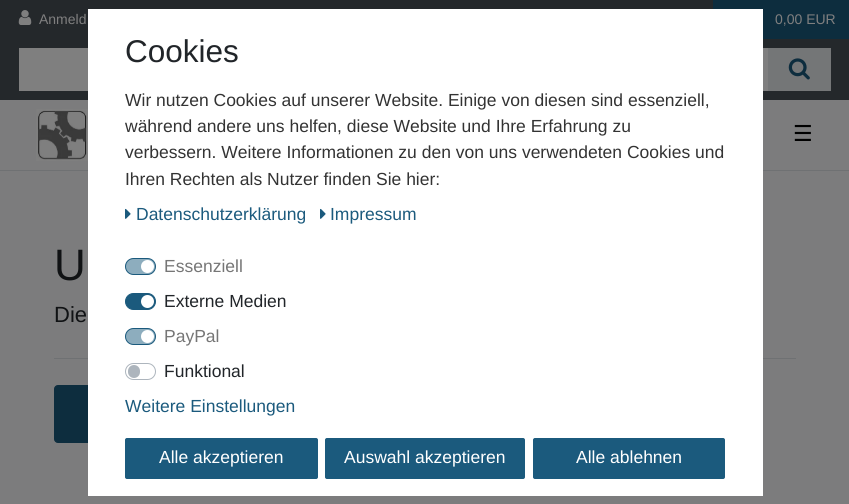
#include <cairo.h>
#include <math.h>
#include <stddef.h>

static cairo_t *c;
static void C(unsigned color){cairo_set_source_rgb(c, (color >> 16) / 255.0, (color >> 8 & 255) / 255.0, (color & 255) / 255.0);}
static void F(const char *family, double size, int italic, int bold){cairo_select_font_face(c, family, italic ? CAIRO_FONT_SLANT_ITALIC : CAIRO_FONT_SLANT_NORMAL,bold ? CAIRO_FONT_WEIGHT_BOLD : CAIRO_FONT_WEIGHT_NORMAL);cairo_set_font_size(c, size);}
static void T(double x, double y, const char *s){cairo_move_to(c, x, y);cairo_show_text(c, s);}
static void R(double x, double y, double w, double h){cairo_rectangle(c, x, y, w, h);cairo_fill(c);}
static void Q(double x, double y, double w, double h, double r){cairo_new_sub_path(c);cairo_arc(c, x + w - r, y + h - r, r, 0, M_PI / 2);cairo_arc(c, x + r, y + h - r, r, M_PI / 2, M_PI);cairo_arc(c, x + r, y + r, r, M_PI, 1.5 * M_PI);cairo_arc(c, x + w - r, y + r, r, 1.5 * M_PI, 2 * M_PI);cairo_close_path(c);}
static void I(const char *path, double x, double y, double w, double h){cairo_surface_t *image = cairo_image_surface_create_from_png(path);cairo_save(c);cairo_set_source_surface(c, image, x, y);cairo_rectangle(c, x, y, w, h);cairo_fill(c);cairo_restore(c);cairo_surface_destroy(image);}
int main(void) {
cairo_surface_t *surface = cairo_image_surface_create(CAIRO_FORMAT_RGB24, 849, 504);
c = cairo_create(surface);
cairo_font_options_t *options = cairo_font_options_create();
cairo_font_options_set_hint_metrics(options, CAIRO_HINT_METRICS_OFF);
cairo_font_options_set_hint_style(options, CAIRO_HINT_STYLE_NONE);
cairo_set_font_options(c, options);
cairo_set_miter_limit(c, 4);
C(0xf8f9fa);
cairo_paint(c);
C(0x495057);
R(0,0,849,100);
I("1.png",18,10,14,15);
F("Liberation Sans",14,0,0);
C(0xffffff);
T(39,24,"Anmeld");
C(0x1b5a7d);
R(713,0,136,39);
C(0xffffff);
T(775,24,"0,00 EUR");
R(19,48,749,43);
C(0xe9ecef);
R(768,48,63,43);
I("2.png",788,58,22,22);
C(0xdee2e6);
R(0,170,849,1);
I("3.png",36,109,52,52);
F("DejaVu Sans",22,0,0);
C(0x000000);
T(793,141,"☰");
F("Liberation Sans",44,0,0);
C(0x212529);
T(54,280,"U");
F("Liberation Sans",22,0,0);
T(54,322,"Die");
C(0xdee2e6);
R(54,358,742,1);
C(0x1b5a7d);
Q(54.5,385.5,181,57,3.5);
cairo_fill_preserve(c);
cairo_set_line_width(c,1);
cairo_stroke(c);
cairo_rectangle(c,-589.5,-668.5,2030,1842);
cairo_set_source_rgba(c,0,0,0,0.5);
cairo_set_line_width(c,1355);
cairo_stroke(c);
C(0xffffff);
R(88,9,675,487);
F("Liberation Sans",31.5,0,0);
C(0x212529);
T(125,62,"Cookies");
F("Liberation Sans",17.5,0,0);
C(0x333333);
T(125,106,"Wir nutzen Cookies auf unserer Website. Einige von diesen sind essenziell,");
T(125,132,"während andere uns helfen, diese Website und Ihre Erfahrung zu");
T(125,158,"verbessern. Weitere Informationen zu den von uns verwendeten Cookies und");
T(125,185,"Ihren Rechten als Nutzer finden Sie hier:");
I("4.png",125,208,6,11);
C(0x1b5a7d);
T(136,220,"Datenschutzerklärung");
I("4.png",320,208,6,11);
T(330,220,"Impressum");
C(0x8dadbe);
Q(125.5,258.5,30,16,8);
cairo_fill_preserve(c);
C(0x1b5a7d);
cairo_set_line_width(c,1);
cairo_stroke(c);
C(0x767676);
T(164,272,"Essenziell");
C(0xffffff);
cairo_new_path(c);
cairo_arc(c,147.5,266.5,6.5,0,2 * M_PI);
cairo_fill(c);
C(0x1b5a7d);
Q(125.5,293.5,30,16,8);
cairo_fill_preserve(c);
cairo_stroke(c);
C(0x212529);
T(164,307,"Externe Medien");
C(0xffffff);
cairo_new_path(c);
cairo_arc(c,147.5,301.5,6.5,0,2 * M_PI);
cairo_fill(c);
C(0x8dadbe);
Q(125.5,328.5,30,16,8);
cairo_fill_preserve(c);
C(0x1b5a7d);
cairo_stroke(c);
C(0x767676);
T(164,342,"PayPal");
C(0xffffff);
cairo_new_path(c);
cairo_arc(c,147.5,336.5,6.5,0,2 * M_PI);
cairo_fill(c);
Q(125.5,363.5,30,16,8);
C(0xadb5bd);
cairo_stroke(c);
C(0x212529);
T(164,377,"Funktional");
C(0xadb5bd);
Q(128,365,12,13,6);
cairo_fill(c);
C(0x1b5a7d);
T(125,412,"Weitere Einstellungen");
Q(125.5,438.5,192,40,1.5);
cairo_fill_preserve(c);
cairo_stroke(c);
C(0xffffff);
T(159,463,"Alle akzeptieren");
C(0x1b5a7d);
Q(325.5,438.5,199,40,1.5);
cairo_fill_preserve(c);
cairo_stroke(c);
C(0xffffff);
T(344,463,"Auswahl akzeptieren");
C(0x1b5a7d);
Q(533.5,438.5,191,40,1.5);
cairo_fill_preserve(c);
cairo_stroke(c);
C(0xffffff);
T(576,463,"Alle ablehnen");
cairo_surface_write_to_png(surface, "o.png");
cairo_font_options_destroy(options);
cairo_destroy(c);
cairo_surface_destroy(surface);
return 0;
}
